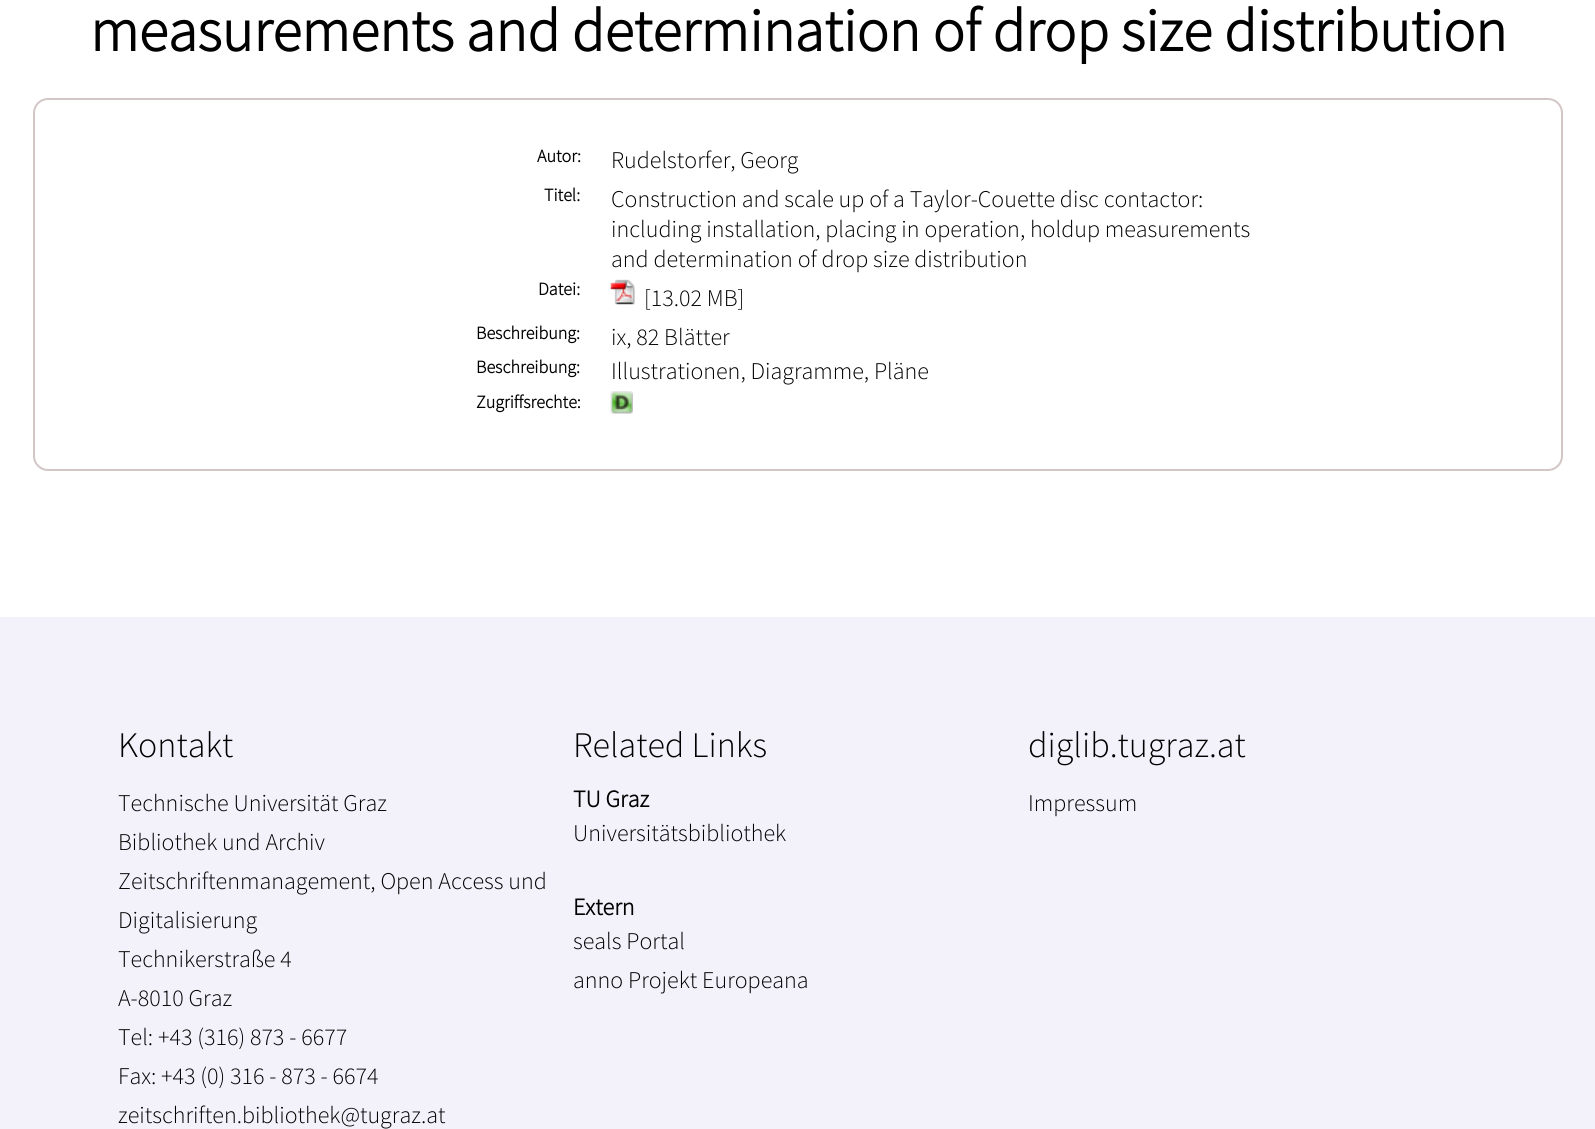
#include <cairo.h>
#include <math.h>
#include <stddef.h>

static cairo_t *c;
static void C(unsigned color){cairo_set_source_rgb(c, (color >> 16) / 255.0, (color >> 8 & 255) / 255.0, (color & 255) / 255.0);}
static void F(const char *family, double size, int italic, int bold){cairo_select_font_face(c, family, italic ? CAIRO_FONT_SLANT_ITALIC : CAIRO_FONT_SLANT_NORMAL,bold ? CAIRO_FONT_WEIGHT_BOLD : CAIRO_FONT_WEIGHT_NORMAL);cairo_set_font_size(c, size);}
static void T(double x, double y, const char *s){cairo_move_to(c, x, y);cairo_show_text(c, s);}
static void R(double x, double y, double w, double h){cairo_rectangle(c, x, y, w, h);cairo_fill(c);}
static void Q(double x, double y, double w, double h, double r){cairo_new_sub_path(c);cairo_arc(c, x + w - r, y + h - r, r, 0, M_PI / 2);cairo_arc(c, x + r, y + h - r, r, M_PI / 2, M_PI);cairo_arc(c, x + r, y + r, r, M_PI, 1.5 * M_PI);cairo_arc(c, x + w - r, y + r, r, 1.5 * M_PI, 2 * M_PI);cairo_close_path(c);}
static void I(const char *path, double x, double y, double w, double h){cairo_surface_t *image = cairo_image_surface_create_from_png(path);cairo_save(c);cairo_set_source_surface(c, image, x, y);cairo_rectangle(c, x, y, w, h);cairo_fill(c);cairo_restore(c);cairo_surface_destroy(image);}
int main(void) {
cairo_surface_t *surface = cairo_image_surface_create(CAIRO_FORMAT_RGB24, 1595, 1129);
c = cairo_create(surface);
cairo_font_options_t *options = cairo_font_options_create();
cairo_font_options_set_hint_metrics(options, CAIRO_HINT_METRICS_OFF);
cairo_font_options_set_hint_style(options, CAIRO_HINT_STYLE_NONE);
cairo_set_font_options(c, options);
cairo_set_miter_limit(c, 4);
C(0xffffff);
cairo_paint(c);
F("Source Sans Pro",60,0,1);
C(0x000000);
T(90,51,"measurements and determination of drop size distribution");
Q(34,99,1528,371,14);
C(0xd2c6c6);
cairo_stroke(c);
F("Source Sans Pro",18,0,1);
C(0x000000);
T(537,162,"Autor:");
F("Source Sans Pro Light",24,0,0);
T(611,168,"Rudelstorfer, Georg");
F("Source Sans Pro",18,0,1);
T(544,201,"Titel:");
F("Source Sans Pro Light",24,0,0);
T(611,207,"Construction and scale up of a Taylor-Couette disc contactor:");
T(611,237,"including installation, placing in operation, holdup measurements");
T(611,267,"and determination of drop size distribution");
F("Source Sans Pro",18,0,1);
T(538,295,"Datei:");
I("1.png",610,279,25,26);
F("Source Sans Pro Light",24,0,0);
T(644,306,"[13.02 MB]");
F("Source Sans Pro",18,0,1);
T(476,339,"Beschreibung:");
F("Source Sans Pro Light",24,0,0);
T(611,345,"ix, 82 Blätter");
F("Source Sans Pro",18,0,1);
T(476,373,"Beschreibung:");
F("Source Sans Pro Light",24,0,0);
T(611,379,"Illustrationen, Diagramme, Pläne");
F("Source Sans Pro",18,0,1);
T(476,408,"Zugriffsrechte:");
I("2.png",610,391,23,23);
C(0xf3f2fb);
R(0,617,1595,512);
F("Source Sans Pro Light",36,0,0);
C(0x000000);
T(118,757,"Kontakt");
F("Source Sans Pro Light",24,0,0);
T(118,811,"Technische Universität Graz");
T(118,850,"Bibliothek und Archiv");
T(118,889,"Zeitschriftenmanagement, Open Access und");
T(118,928,"Digitalisierung");
T(118,967,"Technikerstraße 4");
T(118,1006,"A-8010 Graz");
T(118,1045,"Tel: +43 (316) 873 - 6677");
T(118,1084,"Fax: +43 (0) 316 - 873 - 6674");
T(118,1123,"zeitschriften.bibliothek@tugraz.at");
F("Source Sans Pro Light",36,0,0);
T(573,757,"Related Links");
F("Source Sans Pro",24,0,1);
T(573,807,"TU Graz");
F("Source Sans Pro Light",24,0,0);
T(573,841,"Universitätsbibliothek");
F("Source Sans Pro",24,0,1);
T(573,915,"Extern");
F("Source Sans Pro Light",24,0,0);
T(573,949,"seals Portal");
T(573,988,"anno Projekt Europeana");
F("Source Sans Pro Light",36,0,0);
T(1028,757,"diglib.tugraz.at");
F("Source Sans Pro Light",24,0,0);
T(1028,811,"Impressum");
cairo_surface_write_to_png(surface, "o.png");
cairo_font_options_destroy(options);
cairo_destroy(c);
cairo_surface_destroy(surface);
return 0;
}
